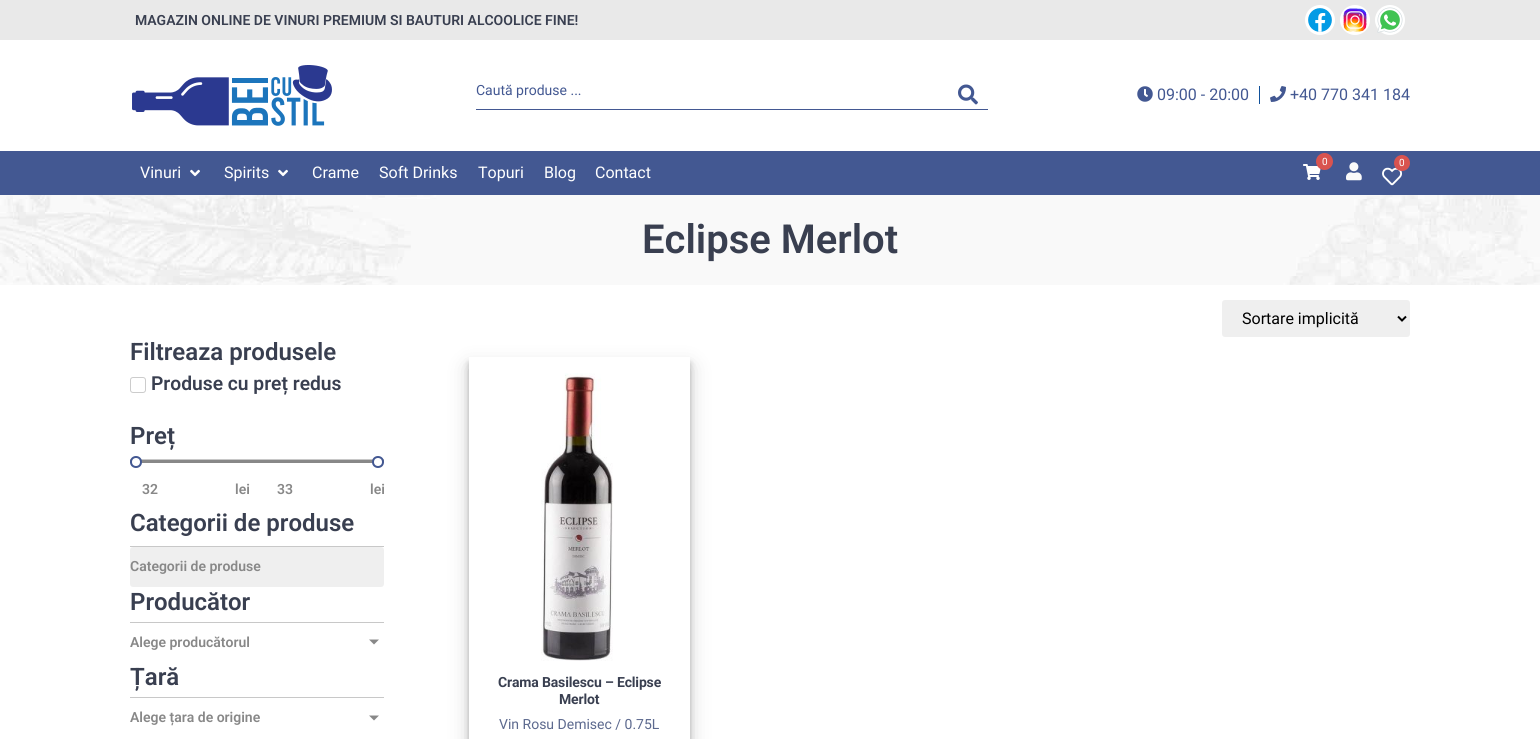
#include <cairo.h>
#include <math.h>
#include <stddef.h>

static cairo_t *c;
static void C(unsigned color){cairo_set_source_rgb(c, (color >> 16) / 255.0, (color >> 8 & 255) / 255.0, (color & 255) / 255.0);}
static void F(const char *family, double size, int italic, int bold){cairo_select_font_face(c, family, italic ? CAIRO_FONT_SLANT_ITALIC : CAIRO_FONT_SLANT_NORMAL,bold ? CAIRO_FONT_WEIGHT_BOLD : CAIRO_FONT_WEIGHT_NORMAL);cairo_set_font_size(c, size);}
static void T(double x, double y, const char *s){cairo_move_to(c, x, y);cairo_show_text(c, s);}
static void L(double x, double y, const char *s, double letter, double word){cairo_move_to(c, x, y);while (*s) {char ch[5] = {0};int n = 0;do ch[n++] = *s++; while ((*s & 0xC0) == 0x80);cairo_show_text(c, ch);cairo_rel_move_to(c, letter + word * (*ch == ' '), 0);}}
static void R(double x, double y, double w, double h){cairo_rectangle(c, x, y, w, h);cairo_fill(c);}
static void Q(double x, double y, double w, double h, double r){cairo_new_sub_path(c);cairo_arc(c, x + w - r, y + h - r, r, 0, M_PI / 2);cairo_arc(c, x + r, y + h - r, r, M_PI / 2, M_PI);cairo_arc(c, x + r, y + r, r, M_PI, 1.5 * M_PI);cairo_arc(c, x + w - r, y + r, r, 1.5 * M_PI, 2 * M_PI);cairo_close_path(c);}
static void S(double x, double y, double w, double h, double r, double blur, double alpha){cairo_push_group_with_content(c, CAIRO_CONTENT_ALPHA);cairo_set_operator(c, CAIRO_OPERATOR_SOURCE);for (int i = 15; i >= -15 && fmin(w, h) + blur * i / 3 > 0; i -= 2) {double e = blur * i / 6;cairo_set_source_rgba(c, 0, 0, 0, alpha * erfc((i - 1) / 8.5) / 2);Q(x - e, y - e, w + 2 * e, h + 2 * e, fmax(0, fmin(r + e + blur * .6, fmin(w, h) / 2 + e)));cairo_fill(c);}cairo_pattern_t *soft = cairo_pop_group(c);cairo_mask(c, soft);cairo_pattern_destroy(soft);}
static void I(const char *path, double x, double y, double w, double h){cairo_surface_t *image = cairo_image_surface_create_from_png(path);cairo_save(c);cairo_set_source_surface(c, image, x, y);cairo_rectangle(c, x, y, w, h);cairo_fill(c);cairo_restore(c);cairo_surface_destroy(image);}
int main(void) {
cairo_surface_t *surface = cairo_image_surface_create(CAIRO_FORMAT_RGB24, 1540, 739);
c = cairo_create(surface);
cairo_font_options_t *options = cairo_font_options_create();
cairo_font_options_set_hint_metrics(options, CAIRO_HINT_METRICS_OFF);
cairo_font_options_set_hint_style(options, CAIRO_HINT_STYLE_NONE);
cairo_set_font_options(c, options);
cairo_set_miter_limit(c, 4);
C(0xffffff);
cairo_paint(c);
C(0xe9e9e9);
R(0,0,1540,40);
F("Roboto SemiBold",14,0,0);
C(0x393f50);
T(135,25,"MAGAZIN ONLINE DE VINURI PREMIUM SI BAUTURI ALCOOLICE FINE!");
C(0xffffff);
cairo_new_path(c);
cairo_arc(c,1320,20,15,0,2 * M_PI);
cairo_fill(c);
I("1.png",1308,8,24,24);
cairo_arc(c,1355,20,15,0,2 * M_PI);
cairo_fill(c);
I("2.png",1343,8,24,24);
cairo_arc(c,1390,20,15,0,2 * M_PI);
cairo_fill(c);
I("3.png",1377,7,26,26);
I("4.png",132,65,200,61);
C(0x435892);
R(476,109,512,1);
F("Roboto",14,0,0);
T(476,95,"Caută produse ...");
I("5.png",958,84,20,21);
I("6.png",1137,86,16,16);
F("Roboto",16,0,0);
T(1157,100,"09:00 - 20:00");
C(0x11519b);
R(1259,86,1,18);
I("7.png",1270,86,16,16);
C(0x435892);
T(1290,100,"+40 770 341 184");
R(0,151,1540,44);
I("8.png",1303,164,18,16);
C(0xd9534f);
cairo_arc(c,1324.5,161.5,8.5,0,2 * M_PI);
cairo_fill(c);
F("Roboto",10,0,0);
C(0xffffff);
T(1322,165,"0");
I("9.png",1346,162,16,19);
I("10.png",1382,167,20,19);
C(0xd9534f);
cairo_arc(c,1402,163,8,0,2 * M_PI);
cairo_fill(c);
C(0xffffff);
T(1399,166,"0");
F("Roboto",16,0,0);
T(140,178,"Vinuri");
I("11.png",190,169,10,8);
T(224,178,"Spirits");
I("11.png",278,169,10,8);
T(312,178,"Crame");
T(379,178,"Soft Drinks");
T(478,178,"Topuri");
T(544,178,"Blog");
T(595,178,"Contact");
I("12.png",0,195,1540,90);
F("Roboto SemiBold",40,0,0);
C(0x393f50);
T(642,253,"Eclipse Merlot");
F("Roboto SemiBold",24,0,0);
T(130,360,"Filtreaza produsele");
Q(130.5,377.5,15,15,2.5);
C(0xcccccc);
cairo_set_line_width(c,1);
cairo_stroke(c);
F("Roboto SemiBold",19.25,0,0);
C(0x393f50);
T(151,390,"Produse cu preț redus");
C(0xc8c8c8);
R(130,459,254,1);
F("Roboto SemiBold",24,0,0);
C(0x393f50);
T(130,444,"Preț");
C(0x888888);
R(130,460,254,3);
C(0xffffff);
cairo_new_path(c);
cairo_arc(c,136,462,5,0,2 * M_PI);
cairo_fill_preserve(c);
C(0x435892);
cairo_set_line_width(c,2);
cairo_stroke(c);
C(0xffffff);
cairo_arc(c,378,462,5,0,2 * M_PI);
cairo_fill_preserve(c);
C(0x435892);
cairo_stroke(c);
F("Roboto SemiBold",14,0,0);
C(0x888888);
T(142,494,"32");
T(235,494,"lei");
T(277,494,"33");
T(370,494,"lei");
C(0xc8c8c8);
R(130,546,254,1);
F("Roboto SemiBold",24,0,0);
C(0x393f50);
T(130,531,"Categorii de produse");
C(0xefefef);
Q(130,547,254,40,3);
cairo_fill(c);
F("Roboto SemiBold",14,0,0);
C(0x888888);
T(130,571,"Categorii de produse");
C(0xc8c8c8);
R(130,622,254,1);
F("Roboto SemiBold",24,0,0);
C(0x393f50);
T(130,610,"Producător");
F("Roboto SemiBold",14,0,0);
C(0x888888);
T(130,647,"Alege producătorul");
cairo_new_path(c);
cairo_move_to(c,369,639.5);
cairo_line_to(c,379,639.5);
cairo_line_to(c,374,644.5);
cairo_close_path(c);
cairo_fill(c);
C(0xc8c8c8);
R(130,697,254,1);
F("Roboto SemiBold",24,0,0);
C(0x393f50);
T(130,685,"Țară");
F("Roboto SemiBold",14,0,0);
C(0x888888);
T(130,722,"Alege țara de origine");
cairo_new_path(c);
cairo_move_to(c,369,715.5);
cairo_line_to(c,379,715.5);
cairo_line_to(c,374,720.5);
cairo_close_path(c);
cairo_fill(c);
C(0xefefef);
Q(1222,300,188,37,3);
cairo_fill(c);
cairo_new_path(c);
cairo_move_to(c,1398,316.5);
cairo_line_to(c,1402,320.5);
cairo_line_to(c,1406,316.5);
C(0x000000);
cairo_stroke(c);
F("Roboto",16,0,0);
T(1242,324,"Sortare implicită");
cairo_save(c);
cairo_set_fill_rule(c,CAIRO_FILL_RULE_EVEN_ODD);
cairo_new_path(c);
cairo_move_to(c,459,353);
cairo_line_to(c,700,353);
cairo_line_to(c,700,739);
cairo_line_to(c,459,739);
cairo_close_path(c);
cairo_move_to(c,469,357);
cairo_line_to(c,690,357);
cairo_line_to(c,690,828);
cairo_line_to(c,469,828);
cairo_close_path(c);
cairo_clip(c);
C(0x000000);
S(469,363,221,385,0,3,.22);
cairo_restore(c);
cairo_save(c);
cairo_set_fill_rule(c,CAIRO_FILL_RULE_EVEN_ODD);
cairo_new_path(c);
cairo_move_to(c,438,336);
cairo_line_to(c,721,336);
cairo_line_to(c,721,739);
cairo_line_to(c,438,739);
cairo_close_path(c);
cairo_move_to(c,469,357);
cairo_line_to(c,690,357);
cairo_line_to(c,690,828);
cairo_line_to(c,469,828);
cairo_close_path(c);
cairo_clip(c);
C(0x000000);
S(469,367,221,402,0,10,.19);
cairo_restore(c);
I("13.png",541,373,72,288);
F("Roboto",14,0,1);
C(0x393f50);
L(498,687,"Crama Basilescu – Eclipse",-.15,0);
L(559,704,"Merlot",-.15,0);
F("Roboto",14,0,0);
C(0x5c698e);
T(499,729,"Vin Rosu Demisec / 0.75L");
cairo_surface_write_to_png(surface, "o.png");
cairo_font_options_destroy(options);
cairo_destroy(c);
cairo_surface_destroy(surface);
return 0;
}
